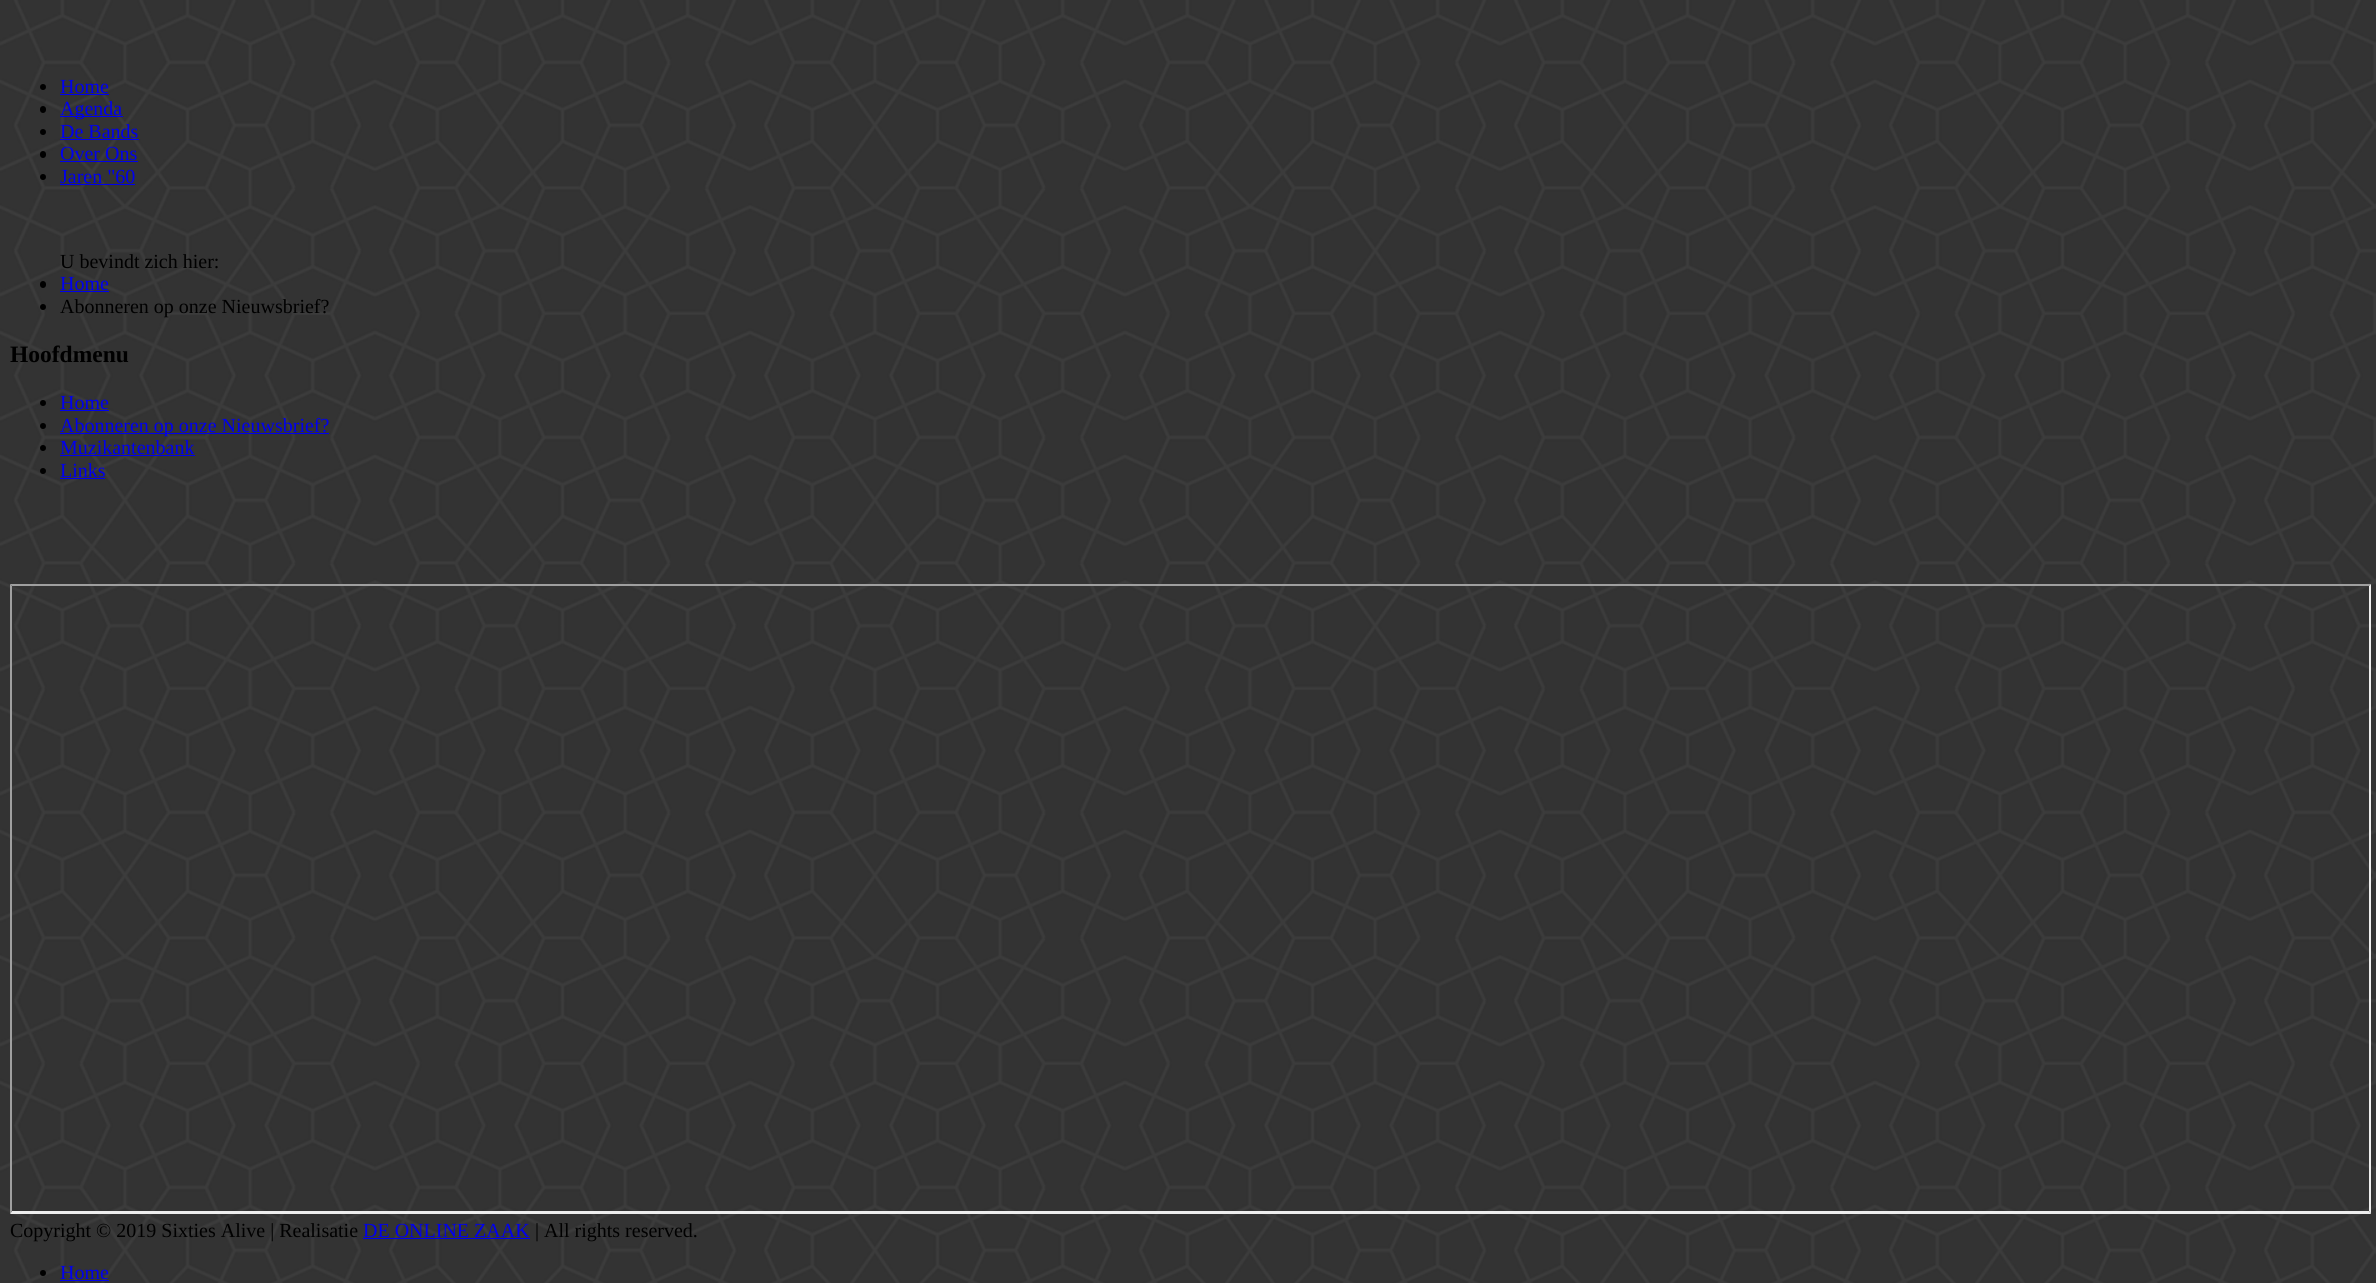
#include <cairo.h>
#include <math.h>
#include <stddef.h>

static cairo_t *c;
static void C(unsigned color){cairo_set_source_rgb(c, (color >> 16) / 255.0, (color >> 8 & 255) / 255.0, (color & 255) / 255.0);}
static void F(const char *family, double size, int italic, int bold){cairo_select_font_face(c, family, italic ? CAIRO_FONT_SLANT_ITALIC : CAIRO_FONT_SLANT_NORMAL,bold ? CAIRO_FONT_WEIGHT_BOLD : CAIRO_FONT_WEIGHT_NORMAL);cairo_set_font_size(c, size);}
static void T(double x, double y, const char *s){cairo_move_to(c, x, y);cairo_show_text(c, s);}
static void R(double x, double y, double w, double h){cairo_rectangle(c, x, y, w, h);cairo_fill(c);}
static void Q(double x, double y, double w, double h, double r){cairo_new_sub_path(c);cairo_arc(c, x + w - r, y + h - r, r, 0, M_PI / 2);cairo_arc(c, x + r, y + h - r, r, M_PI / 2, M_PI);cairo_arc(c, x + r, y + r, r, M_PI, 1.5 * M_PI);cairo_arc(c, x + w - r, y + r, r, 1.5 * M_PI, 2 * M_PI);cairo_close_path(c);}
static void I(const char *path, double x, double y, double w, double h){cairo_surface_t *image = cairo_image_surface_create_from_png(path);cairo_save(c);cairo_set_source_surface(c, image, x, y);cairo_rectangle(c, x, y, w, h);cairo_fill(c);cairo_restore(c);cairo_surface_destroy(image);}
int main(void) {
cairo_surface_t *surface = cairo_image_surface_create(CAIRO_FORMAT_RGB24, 2376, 1283);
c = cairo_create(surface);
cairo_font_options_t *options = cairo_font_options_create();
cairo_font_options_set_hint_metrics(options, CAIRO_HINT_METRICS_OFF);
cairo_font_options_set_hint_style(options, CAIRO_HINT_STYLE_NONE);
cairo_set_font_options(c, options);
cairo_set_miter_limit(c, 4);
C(0xffffff);
cairo_paint(c);
I("1.png",0,0,2376,1283);
C(0x000000);
cairo_arc(c,43,87,3,0,2 * M_PI);
cairo_fill(c);
F("Liberation Serif",20,0,0);
C(0x0000ee);
T(60,93,"Home");
R(60,94,49,1);
C(0x000000);
Q(40,106,6,7,3);
cairo_fill(c);
C(0x0000ee);
R(60,116,63,1);
T(60,115,"Agenda");
C(0x000000);
cairo_new_path(c);
cairo_arc(c,43,132,3,0,2 * M_PI);
cairo_fill(c);
C(0x0000ee);
T(60,138,"De Bands");
R(60,139,79,1);
C(0x000000);
Q(40,151,6,7,3);
cairo_fill(c);
C(0x0000ee);
T(60,160,"Over Ons");
R(60,161,78,1);
C(0x000000);
cairo_new_path(c);
cairo_arc(c,43,177,3,0,2 * M_PI);
cairo_fill(c);
C(0x0000ee);
T(60,183,"Jaren \"60");
R(60,184,75,1);
C(0x000000);
T(60,268,"U bevindt zich hier:");
Q(40,281,6,7,3);
cairo_fill(c);
C(0x0000ee);
T(60,290,"Home");
R(60,291,49,1);
C(0x000000);
cairo_new_path(c);
cairo_arc(c,43,307,3,0,2 * M_PI);
cairo_fill(c);
T(60,313,"Abonneren op onze Nieuwsbrief?");
F("Liberation Serif",23.5,0,1);
T(10,362,"Hoofdmenu");
cairo_new_path(c);
cairo_arc(c,43,403,3,0,2 * M_PI);
cairo_fill(c);
F("Liberation Serif",20,0,0);
C(0x0000ee);
T(60,409,"Home");
R(60,410,49,1);
C(0x000000);
cairo_new_path(c);
cairo_arc(c,43,426,3,0,2 * M_PI);
cairo_fill(c);
C(0x0000ee);
R(60,433,269,1);
T(60,432,"Abonneren op onze Nieuwsbrief?");
C(0x000000);
cairo_new_path(c);
cairo_arc(c,43,448,3,0,2 * M_PI);
cairo_fill(c);
C(0x0000ee);
T(60,454,"Muzikantenbank");
R(60,455,135,1);
C(0x000000);
cairo_new_path(c);
cairo_arc(c,43,471,3,0,2 * M_PI);
cairo_fill(c);
C(0x0000ee);
T(60,477,"Links");
R(60,478,45,1);
C(0x9f9f9f);
cairo_new_path(c);
cairo_move_to(c,10,584);
cairo_line_to(c,2371,584);
cairo_line_to(c,2369,586);
cairo_line_to(c,12,586);
cairo_close_path(c);
cairo_fill(c);
C(0xeeeeee);
cairo_new_path(c);
cairo_move_to(c,2371,584);
cairo_line_to(c,2371,1214);
cairo_line_to(c,2369,1211);
cairo_line_to(c,2369,586);
cairo_close_path(c);
cairo_fill(c);
cairo_new_path(c);
cairo_move_to(c,2371,1214);
cairo_line_to(c,10,1214);
cairo_line_to(c,12,1211);
cairo_line_to(c,2369,1211);
cairo_close_path(c);
cairo_fill(c);
C(0x9f9f9f);
cairo_new_path(c);
cairo_move_to(c,10,1214);
cairo_line_to(c,10,584);
cairo_line_to(c,12,586);
cairo_line_to(c,12,1211);
cairo_close_path(c);
cairo_fill(c);
C(0x000000);
T(10,1237,"Copyright © 2019 Sixties Alive | Realisatie");
C(0x0000ee);
T(363,1237,"DE ONLINE ZAAK");
R(363,1238,167,1);
C(0x000000);
T(535,1237,"| All rights reserved.");
cairo_new_path(c);
cairo_arc(c,43,1273,3,0,2 * M_PI);
cairo_fill(c);
C(0x0000ee);
T(60,1279,"Home");
R(60,1280,49,1);
cairo_surface_write_to_png(surface, "o.png");
cairo_font_options_destroy(options);
cairo_destroy(c);
cairo_surface_destroy(surface);
return 0;
}
